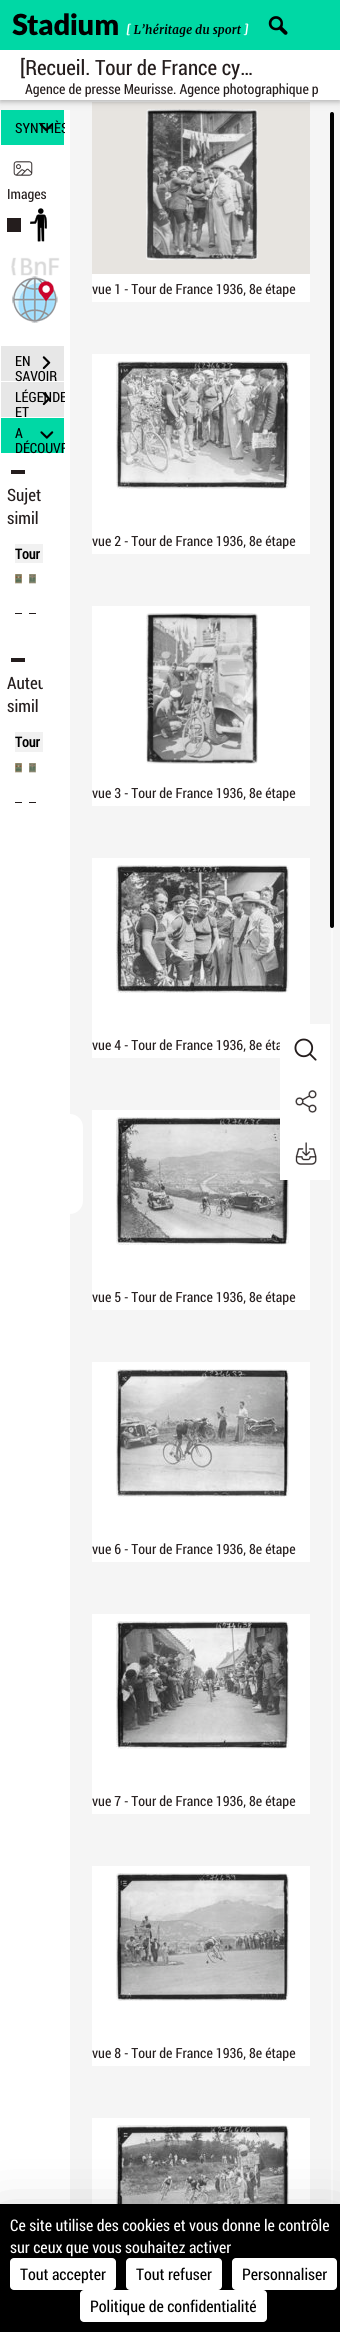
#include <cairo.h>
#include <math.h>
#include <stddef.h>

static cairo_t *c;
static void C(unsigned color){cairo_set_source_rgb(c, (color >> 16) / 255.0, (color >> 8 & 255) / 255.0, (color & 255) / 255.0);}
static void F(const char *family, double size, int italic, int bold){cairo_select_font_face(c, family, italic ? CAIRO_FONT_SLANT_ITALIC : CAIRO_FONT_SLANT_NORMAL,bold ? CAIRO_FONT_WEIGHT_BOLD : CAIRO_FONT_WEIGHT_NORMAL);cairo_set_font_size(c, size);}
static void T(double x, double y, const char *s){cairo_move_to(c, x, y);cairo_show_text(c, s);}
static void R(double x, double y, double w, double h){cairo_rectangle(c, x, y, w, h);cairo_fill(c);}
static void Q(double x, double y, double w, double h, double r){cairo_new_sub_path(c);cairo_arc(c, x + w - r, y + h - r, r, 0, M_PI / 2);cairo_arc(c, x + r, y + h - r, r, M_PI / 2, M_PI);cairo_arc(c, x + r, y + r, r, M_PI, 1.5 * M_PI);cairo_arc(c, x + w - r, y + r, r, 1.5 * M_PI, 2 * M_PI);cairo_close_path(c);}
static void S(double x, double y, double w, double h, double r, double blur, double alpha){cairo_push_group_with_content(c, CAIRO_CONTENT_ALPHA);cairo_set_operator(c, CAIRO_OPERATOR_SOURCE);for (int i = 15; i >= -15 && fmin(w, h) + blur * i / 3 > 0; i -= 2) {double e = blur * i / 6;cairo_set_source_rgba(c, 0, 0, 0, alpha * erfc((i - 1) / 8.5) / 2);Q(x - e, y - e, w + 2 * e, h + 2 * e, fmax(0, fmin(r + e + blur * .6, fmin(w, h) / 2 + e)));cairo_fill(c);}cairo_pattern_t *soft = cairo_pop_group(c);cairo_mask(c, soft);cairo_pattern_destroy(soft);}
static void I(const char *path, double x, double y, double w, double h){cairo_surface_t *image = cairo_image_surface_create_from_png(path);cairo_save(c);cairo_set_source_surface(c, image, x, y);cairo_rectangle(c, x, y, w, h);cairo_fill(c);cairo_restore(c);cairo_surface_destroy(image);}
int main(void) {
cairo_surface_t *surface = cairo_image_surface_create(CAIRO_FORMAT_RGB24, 340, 2332);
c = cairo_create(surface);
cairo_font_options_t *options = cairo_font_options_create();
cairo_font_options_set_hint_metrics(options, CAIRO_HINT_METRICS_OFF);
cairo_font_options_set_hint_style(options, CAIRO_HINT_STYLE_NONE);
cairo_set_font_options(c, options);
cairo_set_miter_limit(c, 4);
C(0xf5f5f5);
cairo_paint(c);
C(0xe7e4e0);
R(92,102,218,172);
I("13.png",146,109,112,151);
C(0xfafafa);
Q(331,110,2,2212,1);
cairo_fill(c);
C(0x000000);
S(0,52,340,50,0,5,.12);
S(0,52,340,50,0,2,.16);
C(0x00d8a5);
R(0,0,340,50);
I("1.png",12,13,237,25);
I("2.png",268,16,20,19);
C(0xffffff);
R(0,50,340,50);
F("Roboto Condensed",21,0,0);
C(0x241d1d);
T(20,75,"[Recueil. Tour de France cy…");
F("Roboto Condensed",14,0,0);
T(25,94,"Agence de presse Meurisse. Agence photographique p");
C(0xffffff);
R(65,110,5,2094);
R(0,110,65,2094);
C(0x00d8a5);
R(1,110,63,35);
cairo_save(c);
cairo_rectangle(c,0,110,65,2222);
cairo_clip(c);
C(0x000000);
T(15,133,"SYNTHÈS");
cairo_restore(c);
I("3.png",39,123,13,9);
I("4.png",13,161,20,15);
C(0x241d1d);
T(7,199,"Images");
R(7,218,14,14);
I("5.png",30,208,17,34);
I("6.png",11,257,49,19);
I("7.png",12,276,46,47);
C(0xe7e7e7);
R(1,346,63,35);
C(0x000000);
T(15,366,"EN");
I("8.png",42,356,9,14);
T(15,381,"SAVOIR");
C(0xe7e7e7);
R(1,382,63,35);
cairo_save(c);
cairo_rectangle(c,0,110,65,2222);
cairo_clip(c);
C(0x000000);
T(15,402,"LÉGENDE");
cairo_restore(c);
I("9.png",42,392,8,14);
C(0x000000);
T(15,417,"ET");
C(0x00d8a5);
R(1,418,63,35);
C(0x000000);
T(15,438,"A");
I("10.png",40,431,14,8);
cairo_save(c);
cairo_rectangle(c,0,110,65,2222);
cairo_clip(c);
T(15,453,"DÉCOUVR");
cairo_restore(c);
F("Roboto Condensed",17,0,0);
C(0x241d1d);
T(7,501,"Sujet");
R(11,470,14,4);
T(7,524,"simil");
C(0xf1f1f1);
R(15,544,28,19);
F("Roboto Condensed",14,0,1);
C(0x000000);
T(15,559,"Tour");
I("11.png",15,574,7,10);
C(0x241d1d);
R(15,613,7,1);
I("12.png",29,574,7,10);
R(29,613,7,1);
cairo_save(c);
cairo_rectangle(c,7,461,36,377);
cairo_clip(c);
F("Roboto Condensed",17,0,0);
T(7,689,"Auteu");
cairo_restore(c);
R(11,658,14,4);
F("Roboto Condensed",17,0,0);
T(7,712,"simil");
C(0xf1f1f1);
R(15,732,28,20);
F("Roboto Condensed",14,0,1);
C(0x000000);
T(15,747,"Tour");
I("11.png",15,763,7,10);
C(0x241d1d);
R(15,802,7,1);
I("12.png",29,763,7,10);
R(29,802,7,1);
C(0xffffff);
cairo_new_path(c);
cairo_move_to(c,70,1114);
cairo_curve_to(c,77,1114,83,1120,83,1127);
cairo_line_to(c,83,1201);
cairo_curve_to(c,83,1208,77,1214,70,1214);
cairo_close_path(c);
cairo_fill(c);
R(92,274,218,28);
F("Roboto Condensed",14,0,0);
C(0x241d1d);
T(92,294,"vue 1 - Tour de France 1936, 8e étape");
C(0xffffff);
R(92,354,218,200);
I("14.png",116,361,173,128);
C(0x241d1d);
T(92,546,"vue 2 - Tour de France 1936, 8e étape");
C(0xffffff);
R(92,606,218,200);
I("15.png",146,613,112,151);
C(0x241d1d);
T(92,798,"vue 3 - Tour de France 1936, 8e étape");
C(0xffffff);
R(92,858,218,200);
I("16.png",116,865,173,128);
C(0x241d1d);
T(92,1050,"vue 4 - Tour de France 1936, 8e éta");
C(0xffffff);
R(92,1110,218,200);
I("17.png",116,1117,173,128);
C(0x241d1d);
T(92,1302,"vue 5 - Tour de France 1936, 8e étape");
C(0xffffff);
R(92,1362,218,200);
I("18.png",116,1369,173,128);
C(0x241d1d);
T(92,1554,"vue 6 - Tour de France 1936, 8e étape");
C(0xffffff);
R(92,1614,218,200);
I("19.png",116,1621,173,128);
C(0x241d1d);
T(92,1806,"vue 7 - Tour de France 1936, 8e étape");
C(0xffffff);
R(92,1866,218,200);
I("20.png",116,1873,173,128);
C(0x241d1d);
T(92,2058,"vue 8 - Tour de France 1936, 8e étape");
C(0xffffff);
R(92,2118,218,86);
I("21.png",116,2125,173,79);
C(0x000000);
Q(330,112,4,816,2);
cairo_fill(c);
C(0xffffff);
R(280,1024,50,156);
I("22.png",294,1038,23,23);
I("23.png",295,1090,22,23);
I("24.png",295,1142,22,23);
C(0x000000);
S(0,2224,340,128,0,30,.25);
C(0x000000);
R(0,2204,340,128);
F("Roboto Condensed",16,0,0);
C(0xffffff);
T(10,2231,"Ce site utilise des cookies et vous donne le contrôle");
T(10,2253,"sur ceux que vous souhaitez activer");
Q(10,2258,106,32,4);
cairo_fill(c);
C(0x000000);
T(20,2280,"Tout accepter");
C(0xffffff);
Q(126,2258,96,32,4);
cairo_fill(c);
C(0x000000);
T(136,2280,"Tout refuser");
C(0xffffff);
Q(232,2258,105,32,4);
cairo_fill(c);
C(0x000000);
T(242,2280,"Personnaliser");
C(0xffffff);
Q(80,2290,187,32,4);
cairo_fill(c);
C(0x000000);
T(90,2312,"Politique de confidentialité");
cairo_surface_write_to_png(surface, "o.png");
cairo_font_options_destroy(options);
cairo_destroy(c);
cairo_surface_destroy(surface);
return 0;
}
